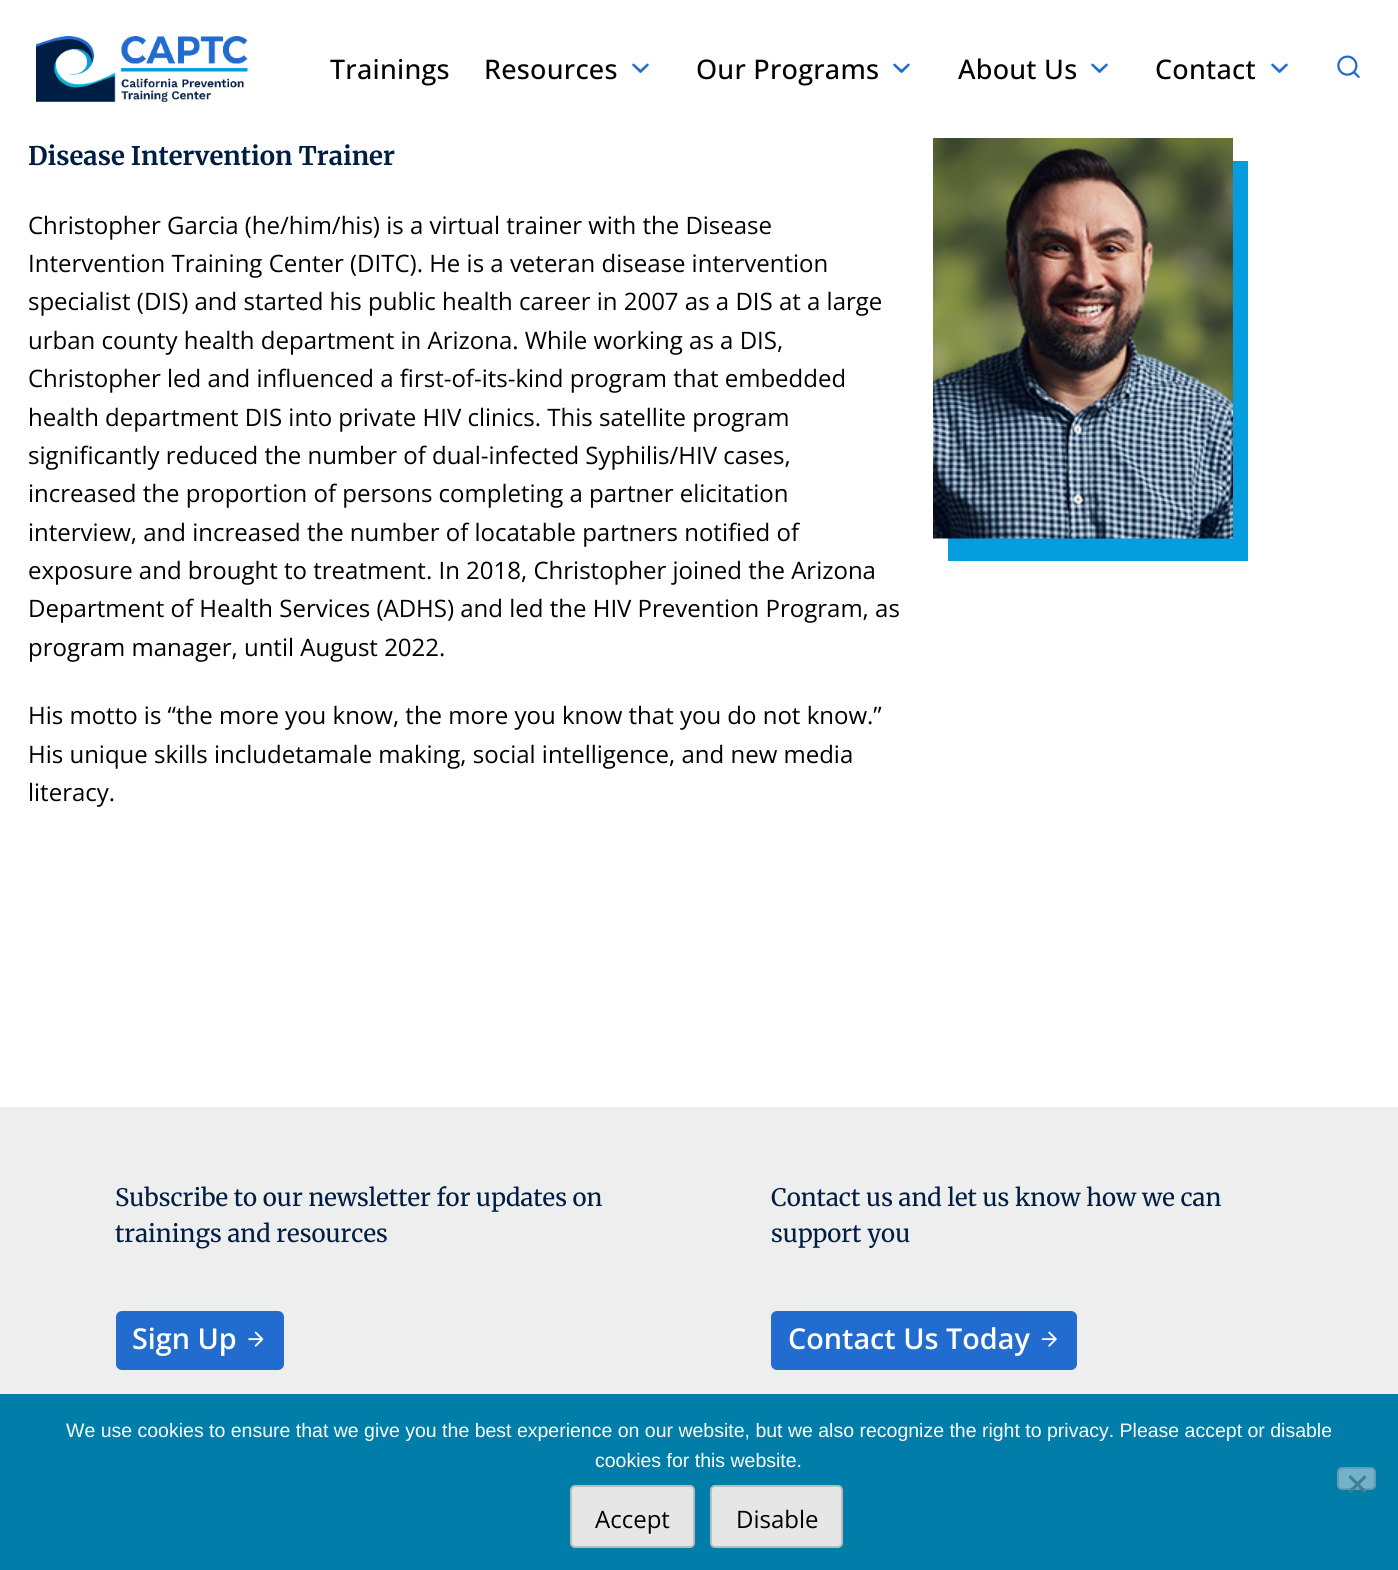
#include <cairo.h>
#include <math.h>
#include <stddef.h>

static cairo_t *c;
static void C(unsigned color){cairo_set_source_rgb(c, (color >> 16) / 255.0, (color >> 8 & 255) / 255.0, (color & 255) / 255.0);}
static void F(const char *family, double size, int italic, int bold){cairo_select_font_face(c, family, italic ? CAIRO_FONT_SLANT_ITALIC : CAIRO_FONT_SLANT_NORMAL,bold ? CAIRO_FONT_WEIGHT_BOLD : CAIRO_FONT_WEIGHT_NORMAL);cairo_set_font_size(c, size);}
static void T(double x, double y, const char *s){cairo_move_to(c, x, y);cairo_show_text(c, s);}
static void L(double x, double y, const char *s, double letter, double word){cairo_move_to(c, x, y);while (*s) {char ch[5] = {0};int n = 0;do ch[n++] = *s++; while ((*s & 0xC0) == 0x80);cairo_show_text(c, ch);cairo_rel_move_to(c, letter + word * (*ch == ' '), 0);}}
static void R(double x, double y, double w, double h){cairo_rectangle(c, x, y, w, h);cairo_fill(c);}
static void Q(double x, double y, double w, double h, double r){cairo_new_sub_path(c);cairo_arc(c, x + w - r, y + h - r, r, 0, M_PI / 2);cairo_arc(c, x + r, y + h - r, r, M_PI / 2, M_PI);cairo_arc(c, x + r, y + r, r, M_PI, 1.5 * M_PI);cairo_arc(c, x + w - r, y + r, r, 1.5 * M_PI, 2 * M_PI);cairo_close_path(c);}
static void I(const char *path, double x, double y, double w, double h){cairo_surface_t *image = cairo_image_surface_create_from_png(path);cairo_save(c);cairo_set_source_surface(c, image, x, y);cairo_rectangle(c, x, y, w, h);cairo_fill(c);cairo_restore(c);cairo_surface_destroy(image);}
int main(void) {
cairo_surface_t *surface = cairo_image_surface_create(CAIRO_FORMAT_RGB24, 1398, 1570);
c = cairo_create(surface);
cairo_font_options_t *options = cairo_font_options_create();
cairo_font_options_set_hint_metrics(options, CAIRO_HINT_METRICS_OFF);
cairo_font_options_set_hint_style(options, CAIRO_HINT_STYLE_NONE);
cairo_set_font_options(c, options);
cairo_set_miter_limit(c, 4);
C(0xffffff);
cairo_paint(c);
I("1.png",36,36,212,66);
F("Open Sans Medium",27,0,0);
C(0x000000);
L(330,79,"Trainings",.25,0);
L(484,79,"Resources",.25,0);
I("2.png",632,63,17,10);
L(696,79,"Our Programs",.25,0);
I("2.png",893,63,17,10);
L(958,79,"About Us",.25,0);
I("2.png",1091,63,17,10);
L(1155,79,"Contact",.25,0);
I("2.png",1271,63,17,10);
I("3.png",1337,55,23,23);
F("Merriweather",25.6,0,1);
C(0x001e44);
T(28,165,"Disease Intervention Trainer");
F("Open Sans",24,0,0);
C(0x000000);
T(28,234,"Christopher Garcia (he/him/his) is a virtual trainer with the Disease");
T(28,272,"Intervention Training Center (DITC). He is a veteran disease intervention");
T(28,310,"specialist (DIS) and started his public health career in 2007 as a DIS at a large");
T(28,349,"urban county health department in Arizona. While working as a DIS,");
T(28,387,"Christopher led and influenced a first-of-its-kind program that embedded");
T(28,426,"health department DIS into private HIV clinics. This satellite program");
T(28,464,"significantly reduced the number of dual-infected Syphilis/HIV cases,");
T(28,502,"increased the proportion of persons completing a partner elicitation");
T(28,541,"interview, and increased the number of locatable partners notified of");
T(28,579,"exposure and brought to treatment. In 2018, Christopher joined the Arizona");
T(28,617,"Department of Health Services (ADHS) and led the HIV Prevention Program, as");
T(28,656,"program manager, until August 2022.");
T(28,724,"His motto is “the more you know, the more you know that you do not know.”");
T(28,763,"His unique skills includetamale making, social intelligence, and new media");
T(28,801,"literacy.");
C(0x059ddd);
cairo_new_path(c);
cairo_move_to(c,948,538);
cairo_line_to(c,948,561);
cairo_line_to(c,1248,561);
cairo_line_to(c,1248,161);
cairo_line_to(c,1233,161);
cairo_line_to(c,1233,538);
cairo_close_path(c);
cairo_fill(c);
I("4.png",933,138,300,401);
C(0xeeeeee);
R(0,1107,1398,287);
F("Merriweather",24,0,0);
C(0x001e44);
T(115,1206,"Subscribe to our newsletter for updates on");
T(115,1242,"trainings and resources");
C(0x216cce);
Q(117.5,1312.5,165,56,4.5);
cairo_fill_preserve(c);
cairo_set_line_width(c,3);
cairo_stroke(c);
F("Open Sans SemiBold",28.75,0,0);
C(0xffffff);
T(132,1349,"Sign Up");
I("5.png",248,1331,16,16);
F("Merriweather",24,0,0);
C(0x001e44);
T(771,1206,"Contact us and let us know how we can");
T(771,1242,"support you");
C(0x216cce);
Q(772.5,1312.5,303,56,4.5);
cairo_fill_preserve(c);
cairo_stroke(c);
F("Open Sans SemiBold",28.75,0,0);
C(0xffffff);
T(788,1349,"Contact Us Today");
I("6.png",1041,1331,16,16);
C(0x007ea9);
R(0,1394,1398,176);
F("Liberation Sans",19.5,0,0);
C(0xffffff);
T(66,1437,"We use cookies to ensure that we give you the best experience on our website, but we also recognize the right to privacy. Please accept or disable");
T(595,1467,"cookies for this website.");
C(0x73b2c8);
Q(1338,1468,37,21,4);
cairo_fill_preserve(c);
C(0x5e9db2);
cairo_set_line_width(c,2);
cairo_stroke(c);
C(0x407f95);
cairo_new_path(c);
cairo_move_to(c,1364.5,1475);
cairo_line_to(c,1366.5,1477.5);
cairo_line_to(c,1350.5,1493.5);
cairo_line_to(c,1348.5,1491);
cairo_close_path(c);
cairo_fill(c);
cairo_new_path(c);
cairo_move_to(c,1348.5,1477.5);
cairo_line_to(c,1350.5,1475);
cairo_line_to(c,1366.5,1491);
cairo_line_to(c,1364.5,1493.5);
cairo_close_path(c);
cairo_fill(c);
C(0xe6e6e6);
Q(571,1486,123,61,4);
cairo_fill_preserve(c);
C(0xbbbbbb);
cairo_stroke(c);
F("Open Sans",24,0,0);
C(0x000000);
T(595,1528,"Accept");
C(0xe6e6e6);
Q(711,1486,131,61,4);
cairo_fill_preserve(c);
C(0xbbbbbb);
cairo_stroke(c);
C(0x000000);
T(736,1528,"Disable");
cairo_surface_write_to_png(surface, "o.png");
cairo_font_options_destroy(options);
cairo_destroy(c);
cairo_surface_destroy(surface);
return 0;
}
